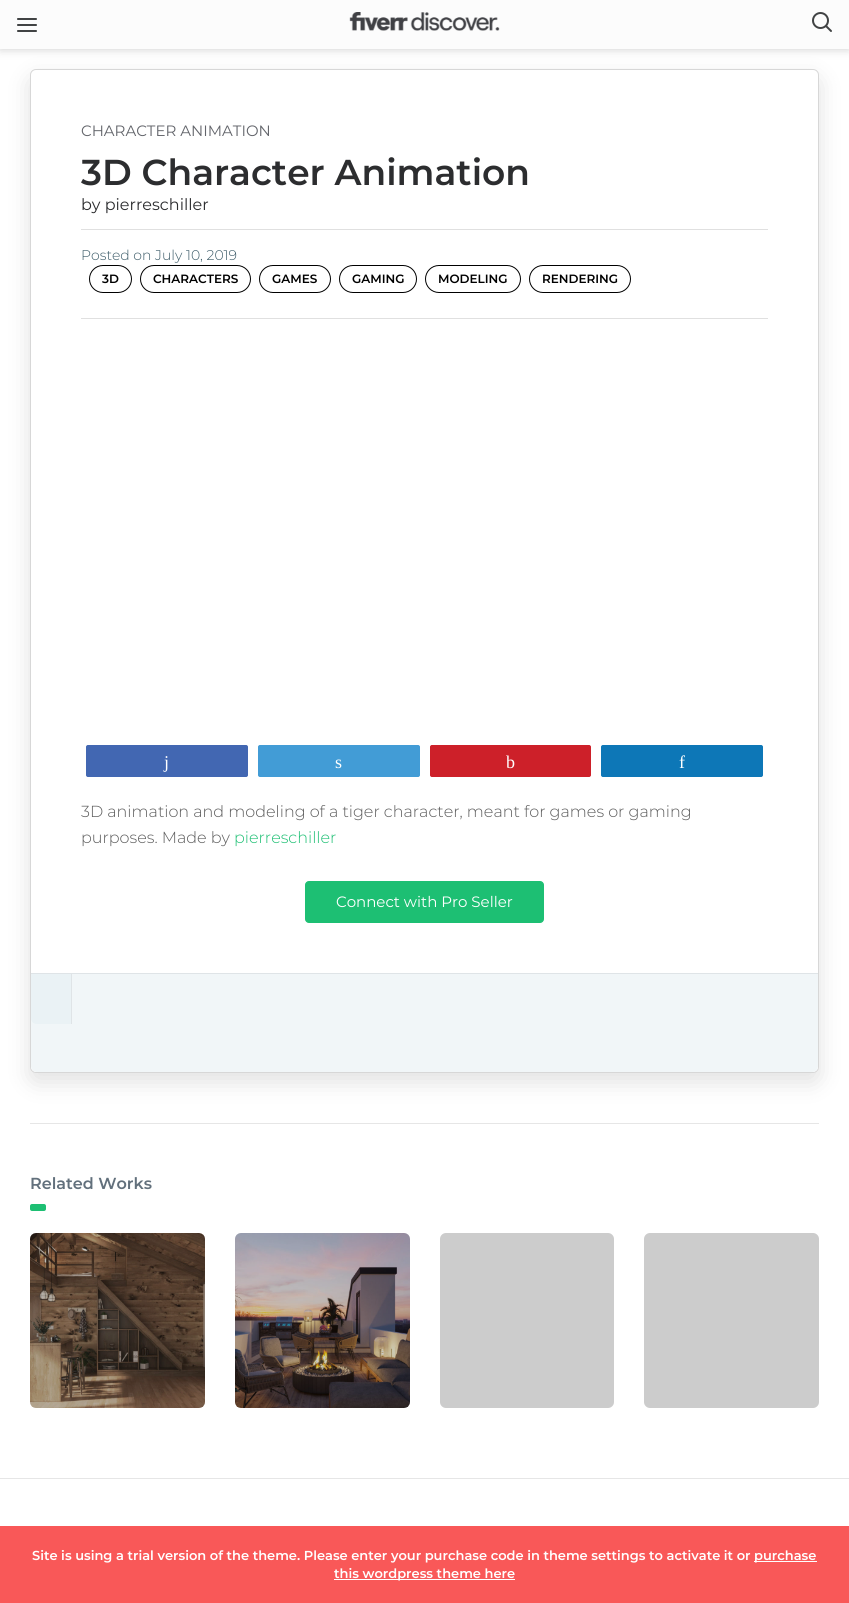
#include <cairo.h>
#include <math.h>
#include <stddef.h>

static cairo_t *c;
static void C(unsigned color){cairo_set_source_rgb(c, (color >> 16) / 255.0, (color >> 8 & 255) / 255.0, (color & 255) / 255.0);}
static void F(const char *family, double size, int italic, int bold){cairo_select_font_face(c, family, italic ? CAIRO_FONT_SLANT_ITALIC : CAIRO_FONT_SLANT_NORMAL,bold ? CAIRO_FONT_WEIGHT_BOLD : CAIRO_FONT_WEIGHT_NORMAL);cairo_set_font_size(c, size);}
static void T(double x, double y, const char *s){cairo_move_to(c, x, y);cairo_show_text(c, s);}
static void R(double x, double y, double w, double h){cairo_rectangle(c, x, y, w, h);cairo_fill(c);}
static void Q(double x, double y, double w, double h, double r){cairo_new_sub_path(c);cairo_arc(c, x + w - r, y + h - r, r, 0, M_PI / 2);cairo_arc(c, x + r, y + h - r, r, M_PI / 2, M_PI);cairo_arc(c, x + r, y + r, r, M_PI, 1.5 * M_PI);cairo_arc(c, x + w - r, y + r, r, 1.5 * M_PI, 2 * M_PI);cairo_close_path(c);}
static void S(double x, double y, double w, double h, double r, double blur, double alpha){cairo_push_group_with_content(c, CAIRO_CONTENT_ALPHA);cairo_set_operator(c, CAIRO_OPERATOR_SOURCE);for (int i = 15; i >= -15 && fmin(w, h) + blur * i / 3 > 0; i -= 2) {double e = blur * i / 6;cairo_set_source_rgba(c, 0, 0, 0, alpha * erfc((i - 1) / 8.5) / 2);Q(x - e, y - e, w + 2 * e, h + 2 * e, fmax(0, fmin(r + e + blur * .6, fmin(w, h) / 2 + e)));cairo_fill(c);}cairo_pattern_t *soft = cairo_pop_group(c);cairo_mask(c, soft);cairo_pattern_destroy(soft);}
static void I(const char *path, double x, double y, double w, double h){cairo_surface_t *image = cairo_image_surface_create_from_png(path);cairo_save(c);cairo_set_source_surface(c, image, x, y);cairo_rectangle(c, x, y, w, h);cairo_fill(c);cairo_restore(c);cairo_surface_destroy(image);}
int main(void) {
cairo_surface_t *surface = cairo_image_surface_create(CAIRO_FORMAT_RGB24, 849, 1603);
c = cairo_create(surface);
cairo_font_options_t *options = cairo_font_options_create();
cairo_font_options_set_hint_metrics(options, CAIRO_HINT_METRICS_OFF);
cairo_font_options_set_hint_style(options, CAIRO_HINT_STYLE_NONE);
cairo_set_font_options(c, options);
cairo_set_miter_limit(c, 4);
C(0xffffff);
cairo_paint(c);
C(0x000000);
S(0,0,849,49,0,5,.2);
S(30,78,789,1004,6,12,.12);
C(0xfcfcfc);
R(0,0,849,49);
I("1.png",17,18,20,14);
I("2.png",349,12,151,19);
I("3.png",812,12,20,20);
C(0xffffff);
Q(30.5,69.5,788,1003,5.5);
cairo_fill_preserve(c);
C(0xd7d7d7);
cairo_set_line_width(c,1);
cairo_stroke(c);
F("Montserrat",15,0,0);
C(0x62646a);
T(81,136,"CHARACTER ANIMATION");
F("Montserrat SemiBold",36,0,0);
C(0x2c2d2f);
T(81,185,"3D Character Animation");
F("Montserrat",16,0,0);
T(81,210,"by pierreschiller");
C(0xe0e0e0);
R(81,229,687,1);
R(81,318,687,1);
F("Montserrat Light",14,0,0);
C(0x3c5b68);
T(81,260,"Posted on July 10, 2019");
Q(89.5,265.5,42,27,13.5);
C(0x000000);
cairo_stroke(c);
F("Montserrat SemiBold",12,0,0);
T(102,283,"3D");
Q(140.5,265.5,110,27,13.5);
cairo_stroke(c);
T(153,283,"CHARACTERS");
Q(259.5,265.5,71,27,13.5);
cairo_stroke(c);
T(272,283,"GAMES");
Q(339.5,265.5,77,27,13.5);
cairo_stroke(c);
T(352,283,"GAMING");
Q(425.5,265.5,95,27,13.5);
cairo_stroke(c);
T(438,283,"MODELING");
Q(529.5,265.5,101,27,13.5);
cairo_stroke(c);
T(542,283,"RENDERING");
C(0x4267b2);
Q(86.5,745.5,161,31,1.5);
cairo_fill_preserve(c);
cairo_stroke(c);
F("Liberation Serif",18,0,0);
C(0xffffff);
T(164,768,"j");
C(0x429cd6);
Q(258.5,745.5,161,31,1.5);
cairo_fill_preserve(c);
cairo_stroke(c);
C(0xffffff);
T(335,768,"s");
C(0xcd2029);
Q(430.5,745.5,160,31,1.5);
cairo_fill_preserve(c);
cairo_stroke(c);
C(0xffffff);
T(506,768,"b");
C(0x0d77b7);
Q(601.5,745.5,161,31,1.5);
cairo_fill_preserve(c);
cairo_stroke(c);
C(0xffffff);
T(679,768,"f");
F("Montserrat Light",16,0,0);
C(0x5c5c5c);
T(81,817,"3D animation and modeling of a tiger character, meant for games or gaming");
T(81,843,"purposes. Made by");
C(0x1dbf73);
T(234,843,"pierreschiller");
Q(305.5,881.5,238,41,3.5);
cairo_fill_preserve(c);
cairo_stroke(c);
F("Montserrat",15,0,0);
C(0xffffff);
T(336,907,"Connect with Pro Seller");
C(0xf1f6f8);
cairo_new_path(c);
cairo_move_to(c,31,973);
cairo_line_to(c,818,973);
cairo_line_to(c,818,1066);
cairo_curve_to(c,818,1069.5,815.5,1072,812,1072);
cairo_line_to(c,37,1072);
cairo_curve_to(c,33.5,1072,31,1069.5,31,1066);
cairo_close_path(c);
cairo_fill(c);
C(0xdfe4e7);
R(31,973,787,1);
C(0xeaf2f5);
cairo_new_path(c);
cairo_move_to(c,31,974);
cairo_line_to(c,72,974);
cairo_line_to(c,72,1024);
cairo_line_to(c,37,1024);
cairo_curve_to(c,33.5,1024,31,1021.5,31,1018);
cairo_close_path(c);
cairo_fill(c);
C(0xdfe4e7);
R(71,974,1,50);
C(0xe6e6e6);
R(30,1123,789,1);
F("Montserrat SemiBold",16,0,0);
C(0x62707c);
T(30,1189,"Related Works");
C(0x1dbf73);
Q(30,1204,16,7,2);
cairo_fill(c);
I("4.png",30,1233,175,175);
cairo_set_source_rgba(c,0,0,0,0.2);
Q(30,1233,175,175,6);
cairo_fill(c);
I("5.png",235,1233,175,175);
Q(235,1233,175,175,6);
cairo_fill(c);
C(0xcccccc);
Q(440,1233,174,175,6);
cairo_fill(c);
Q(644,1233,175,175,6);
cairo_fill(c);
C(0xe6e6e6);
R(0,1478,849,1);
C(0xf95858);
R(0,1526,849,77);
F("Montserrat SemiBold",13,0,0);
C(0xffffff);
T(32,1560,"Site is using a trial version of the theme. Please enter your purchase code in theme settings to activate it or");
R(754,1561,63,1);
T(754,1560,"purchase");
R(334,1579,181,1);
T(334,1578,"this wordpress theme here");
cairo_surface_write_to_png(surface, "o.png");
cairo_font_options_destroy(options);
cairo_destroy(c);
cairo_surface_destroy(surface);
return 0;
}
